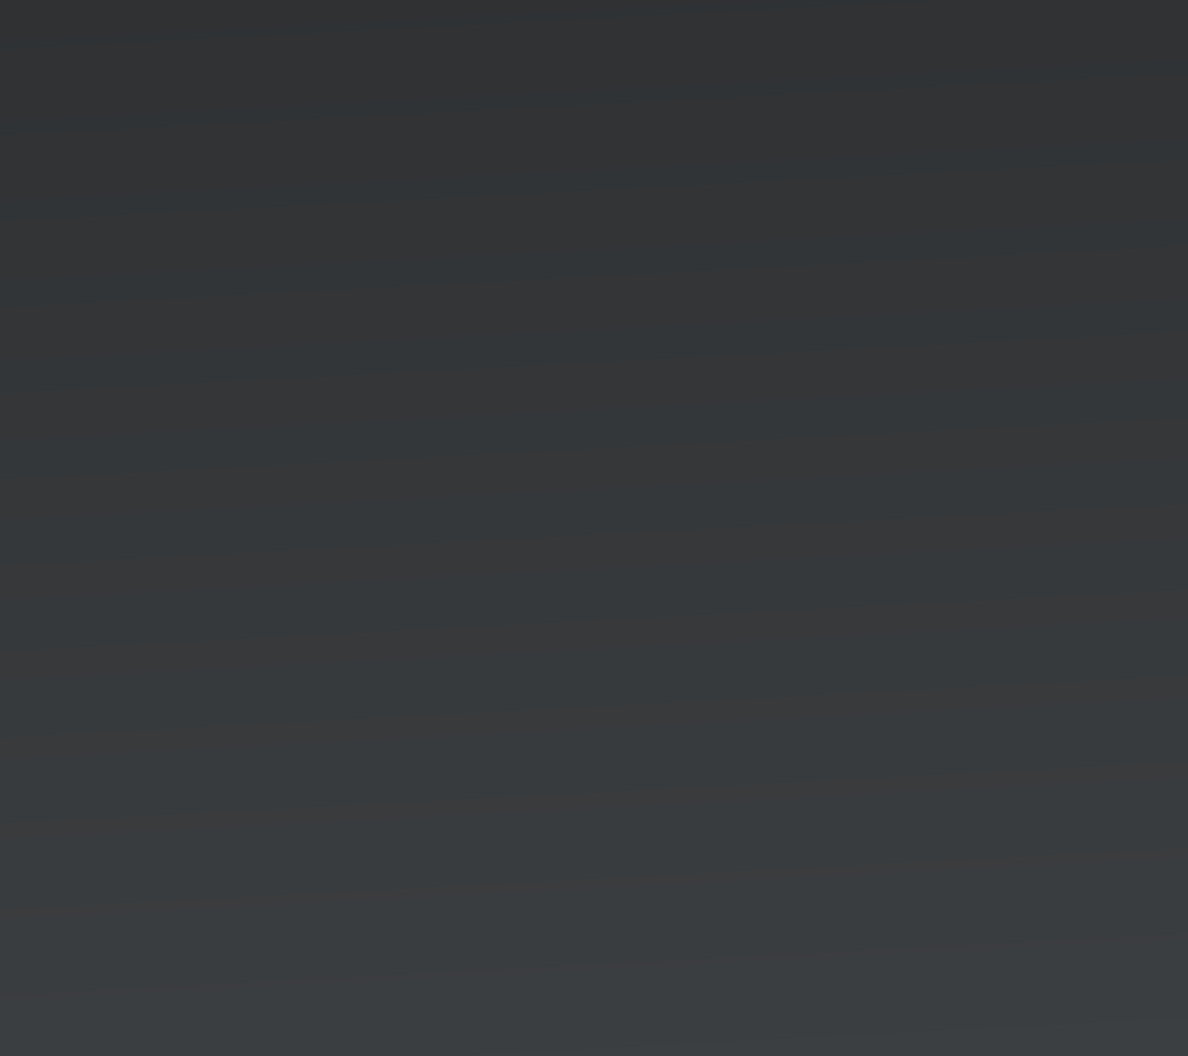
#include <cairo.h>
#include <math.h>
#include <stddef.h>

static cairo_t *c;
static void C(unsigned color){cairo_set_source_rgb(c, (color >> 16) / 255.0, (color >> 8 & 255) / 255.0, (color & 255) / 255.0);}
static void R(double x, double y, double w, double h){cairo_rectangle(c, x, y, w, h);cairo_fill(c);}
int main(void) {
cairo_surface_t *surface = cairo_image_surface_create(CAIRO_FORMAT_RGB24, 1188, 1056);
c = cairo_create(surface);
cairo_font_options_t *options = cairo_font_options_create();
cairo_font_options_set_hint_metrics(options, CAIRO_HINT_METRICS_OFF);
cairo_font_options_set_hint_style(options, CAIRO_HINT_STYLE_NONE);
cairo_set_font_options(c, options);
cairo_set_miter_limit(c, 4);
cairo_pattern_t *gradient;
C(0xffffff);
cairo_paint(c);
gradient = cairo_pattern_create_linear(623,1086,565,-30);
cairo_pattern_add_color_stop_rgba(gradient,0,0.235,0.247,0.255,1);
cairo_pattern_add_color_stop_rgba(gradient,1,0.184,0.192,0.2,1);
cairo_set_source(c,gradient);
cairo_pattern_destroy(gradient);
R(0,0,1188,1056);
cairo_surface_write_to_png(surface, "o.png");
cairo_font_options_destroy(options);
cairo_destroy(c);
cairo_surface_destroy(surface);
return 0;
}
